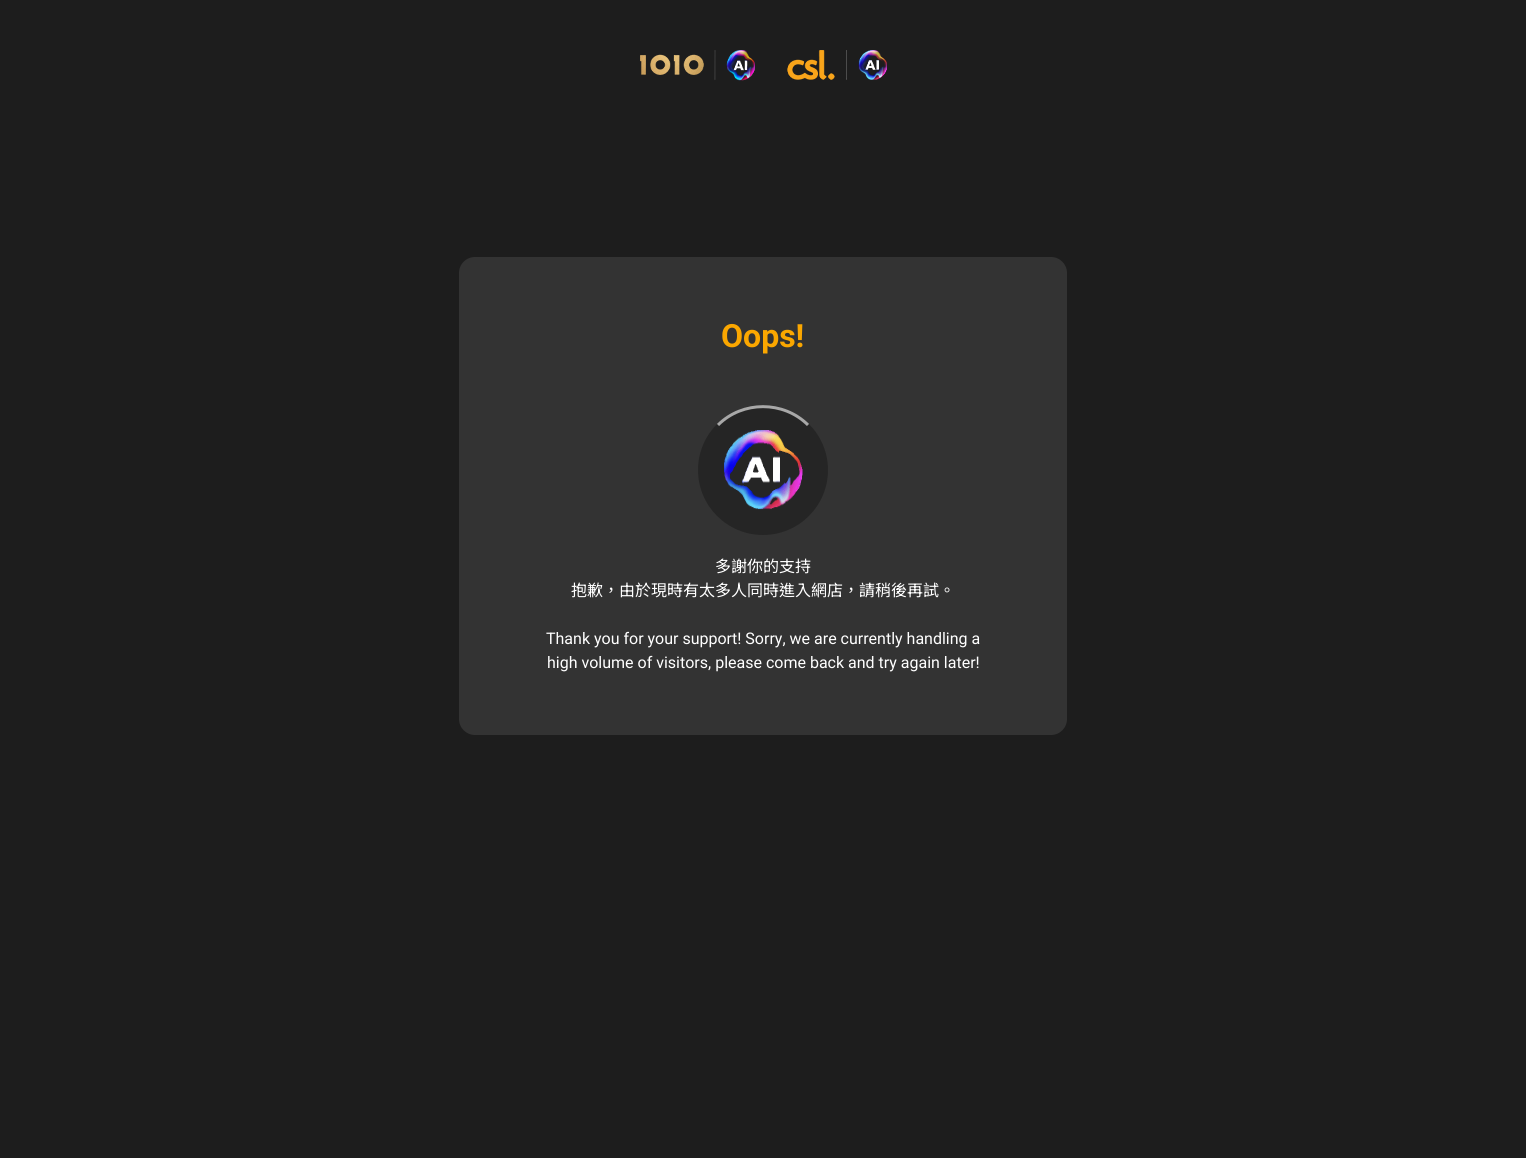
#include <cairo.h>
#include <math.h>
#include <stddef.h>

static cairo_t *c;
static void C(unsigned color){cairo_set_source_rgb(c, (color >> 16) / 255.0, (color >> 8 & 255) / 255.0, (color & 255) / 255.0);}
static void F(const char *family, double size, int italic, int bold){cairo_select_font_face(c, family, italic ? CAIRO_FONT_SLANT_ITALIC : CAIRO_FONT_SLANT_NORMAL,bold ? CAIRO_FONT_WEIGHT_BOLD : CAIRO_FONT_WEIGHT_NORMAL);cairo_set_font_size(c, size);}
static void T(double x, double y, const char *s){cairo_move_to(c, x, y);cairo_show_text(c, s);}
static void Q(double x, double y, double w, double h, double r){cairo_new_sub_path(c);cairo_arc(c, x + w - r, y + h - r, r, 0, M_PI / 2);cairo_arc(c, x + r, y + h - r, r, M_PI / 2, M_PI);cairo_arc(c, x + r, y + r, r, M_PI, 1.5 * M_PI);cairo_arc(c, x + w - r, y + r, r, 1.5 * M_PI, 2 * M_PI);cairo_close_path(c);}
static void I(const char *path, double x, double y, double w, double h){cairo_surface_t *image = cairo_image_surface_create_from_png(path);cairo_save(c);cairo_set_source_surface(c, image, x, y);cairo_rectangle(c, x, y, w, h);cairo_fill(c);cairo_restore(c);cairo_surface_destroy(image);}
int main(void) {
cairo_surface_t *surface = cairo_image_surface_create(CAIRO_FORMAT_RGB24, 1526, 1158);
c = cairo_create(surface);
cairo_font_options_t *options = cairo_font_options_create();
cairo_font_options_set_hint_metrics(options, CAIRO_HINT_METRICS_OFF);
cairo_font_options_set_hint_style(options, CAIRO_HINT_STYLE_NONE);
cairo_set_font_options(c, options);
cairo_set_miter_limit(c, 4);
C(0x1d1d1d);
cairo_paint(c);
I("1.png",640,50,247,31);
C(0x333333);
Q(459,257,608,478,16);
cairo_fill(c);
F("Roboto",32,0,1);
C(0xfba700);
T(721,347,"Oops!");
C(0x252525);
cairo_new_path(c);
cairo_arc(c,763,470,65,0,2 * M_PI);
cairo_fill(c);
I("2.png",724,430,79,80);
cairo_new_path(c);
cairo_move_to(c,718,425);
cairo_curve_to(c,742.5,400.5,783.5,400.5,808,425);
cairo_set_source_rgba(c,1,1,1,0.6);
cairo_set_line_width(c,3);
cairo_stroke(c);
F("Noto Sans TC",16,0,0);
C(0xffffff);
T(715,572,"多謝你的支持");
T(571,596,"抱歉，由於現時有太多人同時進入網店，請稍後再試。");
F("Roboto",16,0,0);
T(546,644,"Thank you for your support! Sorry, we are currently handling a");
T(547,668,"high volume of visitors, please come back and try again later!");
cairo_surface_write_to_png(surface, "o.png");
cairo_font_options_destroy(options);
cairo_destroy(c);
cairo_surface_destroy(surface);
return 0;
}
